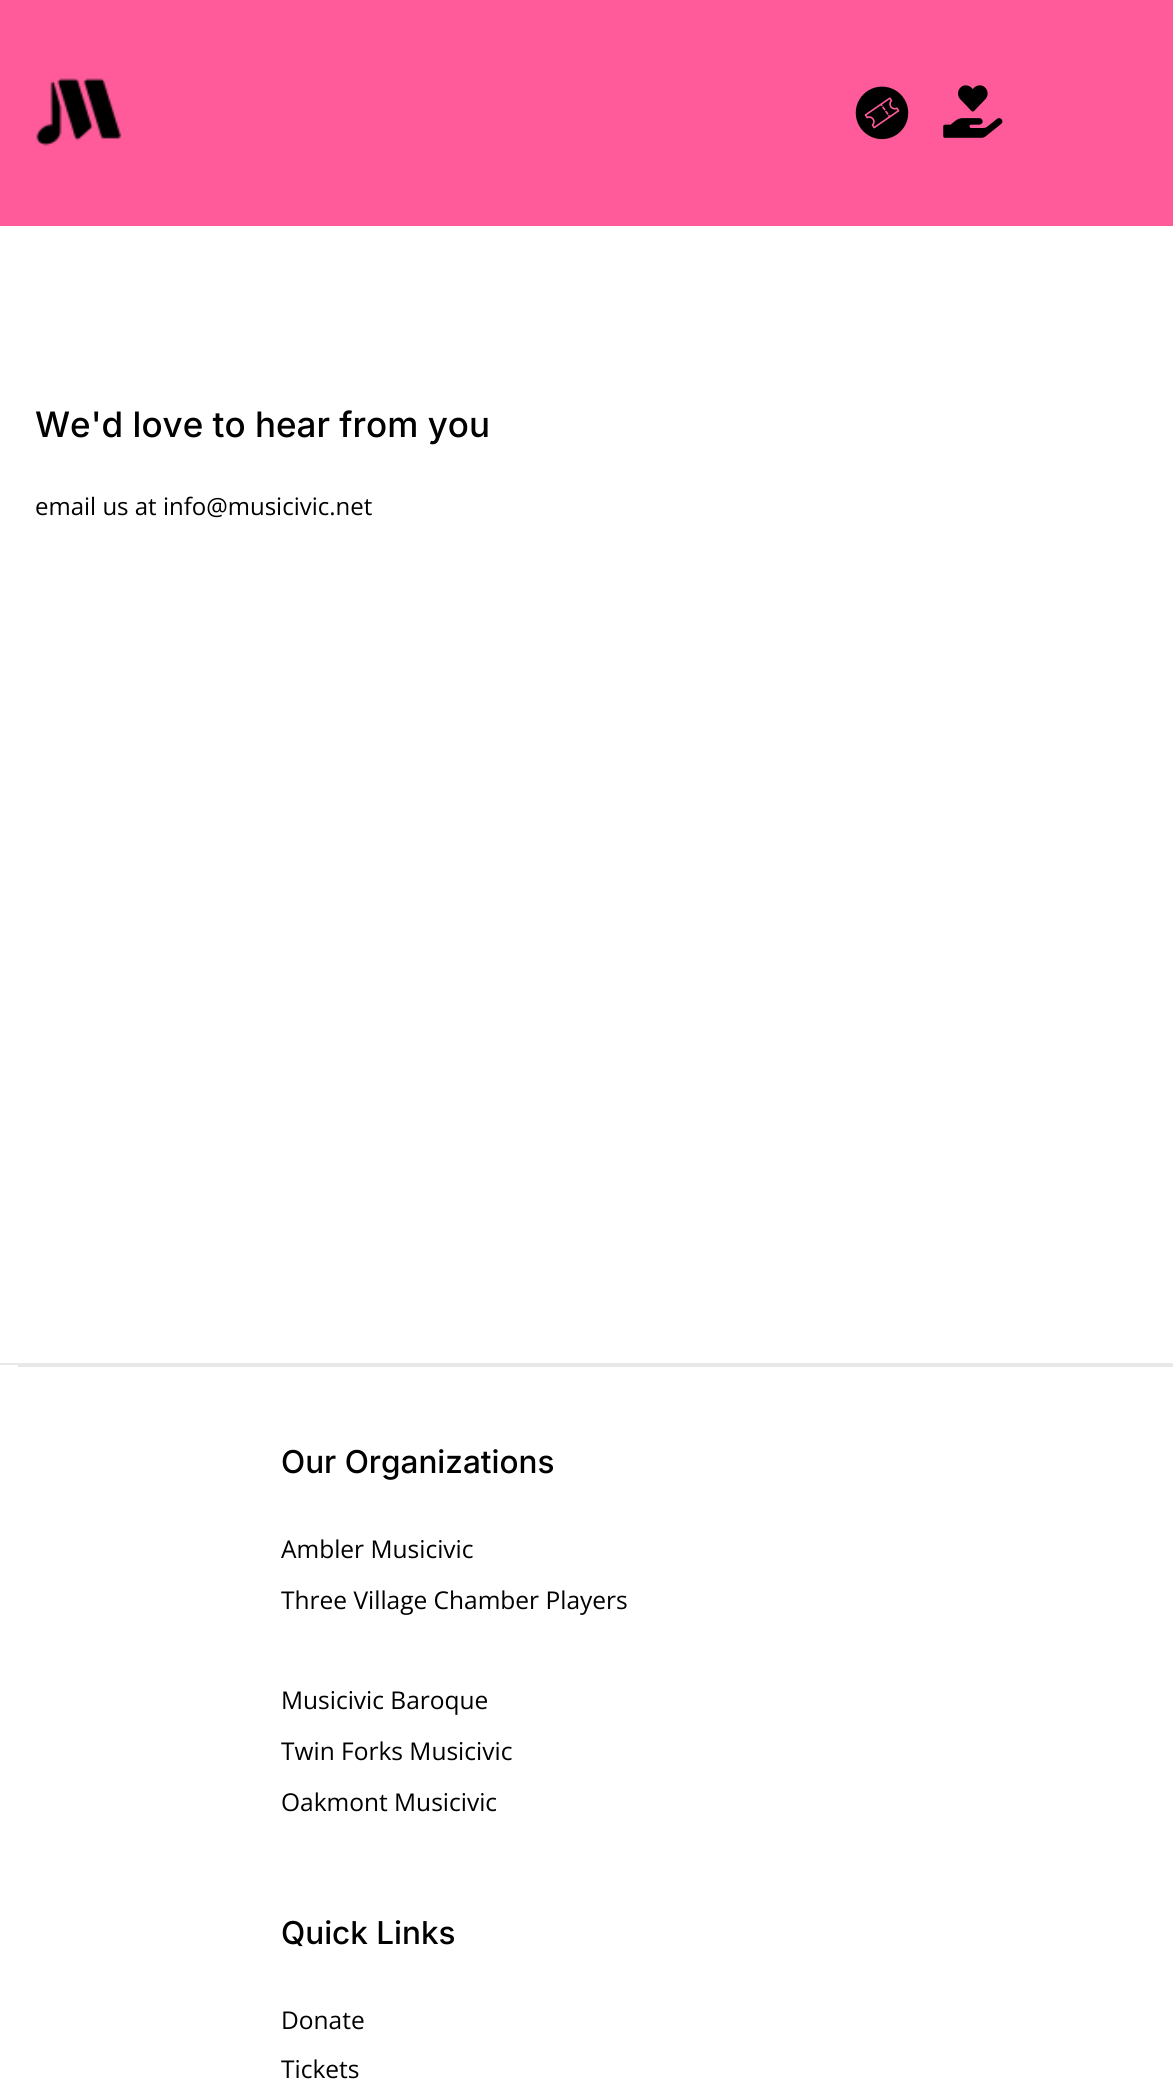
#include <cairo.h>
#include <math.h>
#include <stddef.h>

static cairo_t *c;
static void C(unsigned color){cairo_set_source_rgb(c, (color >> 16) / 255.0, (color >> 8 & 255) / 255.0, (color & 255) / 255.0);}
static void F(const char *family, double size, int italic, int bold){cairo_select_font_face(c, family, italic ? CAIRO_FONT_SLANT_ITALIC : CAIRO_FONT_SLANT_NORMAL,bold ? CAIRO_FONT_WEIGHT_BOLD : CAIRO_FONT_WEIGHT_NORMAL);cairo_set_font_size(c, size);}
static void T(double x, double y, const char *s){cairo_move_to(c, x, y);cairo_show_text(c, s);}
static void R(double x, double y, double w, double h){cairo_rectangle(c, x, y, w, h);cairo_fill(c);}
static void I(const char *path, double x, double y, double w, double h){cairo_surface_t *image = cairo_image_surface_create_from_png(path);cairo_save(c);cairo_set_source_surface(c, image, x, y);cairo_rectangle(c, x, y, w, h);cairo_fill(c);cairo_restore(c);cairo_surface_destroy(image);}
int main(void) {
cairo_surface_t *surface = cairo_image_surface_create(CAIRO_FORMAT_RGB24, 1173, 2084);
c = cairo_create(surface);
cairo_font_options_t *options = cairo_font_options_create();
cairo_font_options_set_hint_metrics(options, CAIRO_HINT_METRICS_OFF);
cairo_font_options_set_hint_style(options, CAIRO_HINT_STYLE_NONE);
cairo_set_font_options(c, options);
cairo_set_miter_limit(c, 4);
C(0xffffff);
cairo_paint(c);
C(0xff5b9a);
R(0,0,1173,226);
I("1.png",36,78,86,68);
I("2.png",855,86,54,54);
I("3.png",943,85,60,53);
C(0xe8e8e8);
R(0,1363,1173,2);
F("Inter Medium",35,0,0);
C(0x000000);
T(35,437,"We'd love to hear from you");
F("Open Sans",24,0,0);
T(35,515,"email us at info@musicivic.net");
C(0xe8e8e8);
R(18,1365,1155,2);
F("Inter Medium",31.5,0,0);
C(0x000000);
T(281,1473,"Our Organizations");
F("Open Sans",24.5,0,0);
T(281,1558,"Ambler Musicivic");
T(281,1609,"Three Village Chamber Players");
T(281,1709,"Musicivic Baroque");
T(281,1760,"Twin Forks Musicivic");
T(281,1811,"Oakmont Musicivic");
F("Inter Medium",31.5,0,0);
T(281,1944,"Quick Links");
F("Open Sans",24.5,0,0);
T(281,2029,"Donate");
T(281,2078,"Tickets");
cairo_surface_write_to_png(surface, "o.png");
cairo_font_options_destroy(options);
cairo_destroy(c);
cairo_surface_destroy(surface);
return 0;
}
